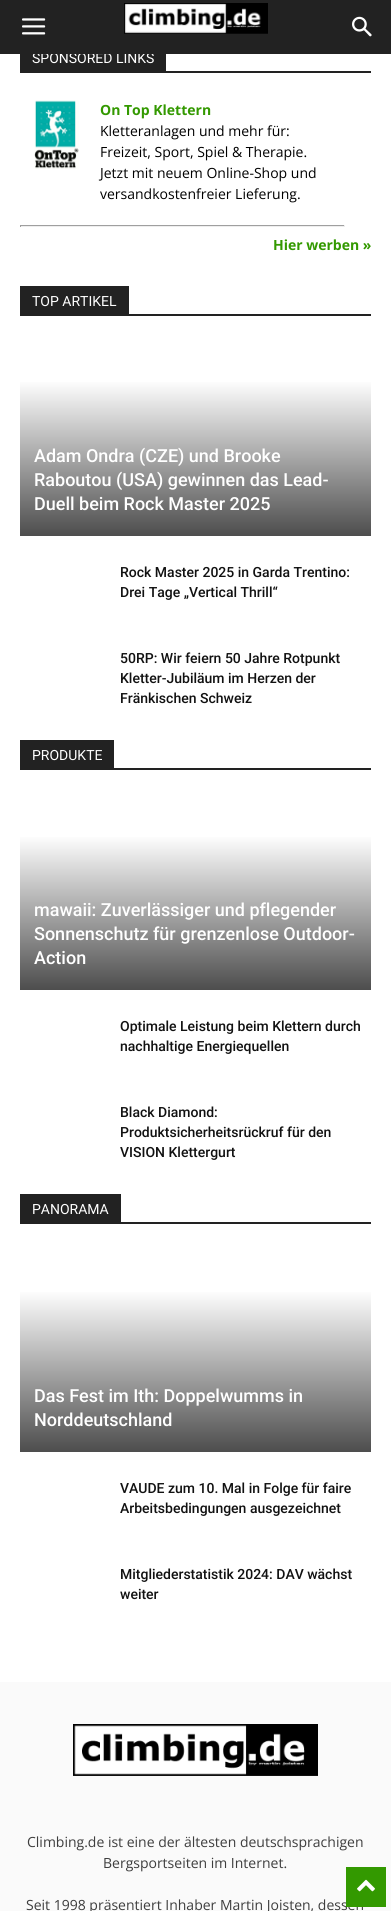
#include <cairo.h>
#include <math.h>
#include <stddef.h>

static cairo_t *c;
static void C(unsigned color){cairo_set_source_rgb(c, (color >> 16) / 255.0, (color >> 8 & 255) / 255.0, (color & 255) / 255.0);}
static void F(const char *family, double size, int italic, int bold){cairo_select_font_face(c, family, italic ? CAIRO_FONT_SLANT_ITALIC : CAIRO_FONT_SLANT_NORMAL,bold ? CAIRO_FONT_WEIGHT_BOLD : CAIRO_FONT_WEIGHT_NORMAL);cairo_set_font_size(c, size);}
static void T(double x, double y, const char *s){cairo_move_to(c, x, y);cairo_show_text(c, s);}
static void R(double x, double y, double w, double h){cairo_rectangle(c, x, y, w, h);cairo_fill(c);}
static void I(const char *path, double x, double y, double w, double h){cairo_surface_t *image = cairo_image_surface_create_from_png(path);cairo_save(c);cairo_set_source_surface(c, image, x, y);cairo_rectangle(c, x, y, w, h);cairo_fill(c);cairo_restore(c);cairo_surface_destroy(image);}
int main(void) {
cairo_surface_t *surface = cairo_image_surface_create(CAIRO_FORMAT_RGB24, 391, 1911);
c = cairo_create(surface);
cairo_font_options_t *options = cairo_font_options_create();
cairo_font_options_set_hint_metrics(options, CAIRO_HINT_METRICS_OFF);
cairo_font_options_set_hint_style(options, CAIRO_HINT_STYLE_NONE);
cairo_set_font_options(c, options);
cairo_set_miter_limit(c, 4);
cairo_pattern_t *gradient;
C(0xffffff);
cairo_paint(c);
C(0x222222);
R(20,54,146,17);
F("Roboto",14,0,0);
C(0xffffff);
T(32,63,"SPONSORED LINKS");
C(0x222222);
R(0,0,391,54);
I("1.png",22,18,24,17);
I("2.png",124,3,144,31);
I("3.png",352,16,20,21);
R(20,71,351,2);
I("4.png",34,100,45,69);
F("Open Sans",14,0,1);
C(0x339900);
T(100,115,"On Top Klettern");
F("Open Sans",14,0,0);
C(0x000000);
T(100,136,"Kletteranlagen und mehr für:");
T(100,157,"Freizeit, Sport, Spiel & Therapie.");
T(100,178,"Jetzt mit neuem Online-Shop und");
T(100,199,"versandkostenfreier Lieferung.");
C(0x9f9f9f);
R(20,225,325,1);
C(0xeeeeee);
R(344,225,1,2);
R(20,226,325,1);
C(0x9f9f9f);
R(20,225,1,2);
F("Open Sans",14,0,1);
C(0x339900);
T(273,250,"Hier werben »");
C(0x222222);
R(20,314,351,2);
R(20,286,109,28);
F("Roboto",14,0,0);
C(0xffffff);
T(32,306,"TOP ARTIKEL");
gradient = cairo_pattern_create_linear(196,380,196,536);
cairo_pattern_add_color_stop_rgba(gradient,0,1,1,1,1);
cairo_pattern_add_color_stop_rgba(gradient,1,0.302,0.302,0.302,1);
cairo_set_source(c,gradient);
cairo_pattern_destroy(gradient);
R(20,382,351,154);
F("Roboto Medium",18,0,0);
C(0xffffff);
T(34,462,"Adam Ondra (CZE) und Brooke");
T(34,486,"Raboutou (USA) gewinnen das Lead-");
T(34,510,"Duell beim Rock Master 2025");
F("Roboto Medium",14,0,0);
C(0x111111);
T(120,577,"Rock Master 2025 in Garda Trentino:");
T(120,597,"Drei Tage „Vertical Thrill“");
T(120,663,"50RP: Wir feiern 50 Jahre Rotpunkt");
T(120,683,"Kletter-Jubiläum im Herzen der");
T(120,703,"Fränkischen Schweiz");
C(0x222222);
R(20,768,351,2);
R(20,740,94,28);
F("Roboto",14,0,0);
C(0xffffff);
T(32,760,"PRODUKTE");
gradient = cairo_pattern_create_linear(196,835,196,990);
cairo_pattern_add_color_stop_rgba(gradient,0,1,1,1,1);
cairo_pattern_add_color_stop_rgba(gradient,1,0.302,0.302,0.302,1);
cairo_set_source(c,gradient);
cairo_pattern_destroy(gradient);
R(20,837,351,153);
F("Roboto Medium",18,0,0);
C(0xffffff);
T(34,916,"mawaii: Zuverlässiger und pflegender");
T(34,940,"Sonnenschutz für grenzenlose Outdoor-");
T(34,964,"Action");
F("Roboto Medium",14,0,0);
C(0x111111);
T(120,1031,"Optimale Leistung beim Klettern durch");
T(120,1051,"nachhaltige Energiequellen");
T(120,1117,"Black Diamond:");
T(120,1137,"Produktsicherheitsrückruf für den");
T(120,1157,"VISION Klettergurt");
C(0x222222);
R(20,1222,351,2);
R(20,1194,101,28);
F("Roboto",14,0,0);
C(0xffffff);
T(32,1214,"PANORAMA");
gradient = cairo_pattern_create_linear(196,1290,196,1452);
cairo_pattern_add_color_stop_rgba(gradient,0,1,1,1,1);
cairo_pattern_add_color_stop_rgba(gradient,1,0.302,0.302,0.302,1);
cairo_set_source(c,gradient);
cairo_pattern_destroy(gradient);
R(20,1292,351,160);
F("Roboto Medium",18,0,0);
C(0xffffff);
T(34,1402,"Das Fest im Ith: Doppelwumms in");
T(34,1426,"Norddeutschland");
F("Roboto Medium",14,0,0);
C(0x111111);
T(120,1493,"VAUDE zum 10. Mal in Folge für faire");
T(120,1513,"Arbeitsbedingungen ausgezeichnet");
T(120,1579,"Mitgliederstatistik 2024: DAV wächst");
T(120,1599,"weiter");
C(0xfafafa);
R(0,1682,391,229);
I("5.png",73,1724,245,52);
F("Open Sans",14,0,0);
C(0x3d3d3d);
T(27,1847,"Climbing.de ist eine der ältesten deutschsprachigen");
T(103,1868,"Bergsportseiten im Internet.");
T(26,1910,"Seit 1998 präsentiert Inhaber Martin Joisten, dessen");
C(0x339900);
R(346,1867,40,40);
I("6.png",357,1879,18,13);
cairo_surface_write_to_png(surface, "o.png");
cairo_font_options_destroy(options);
cairo_destroy(c);
cairo_surface_destroy(surface);
return 0;
}
